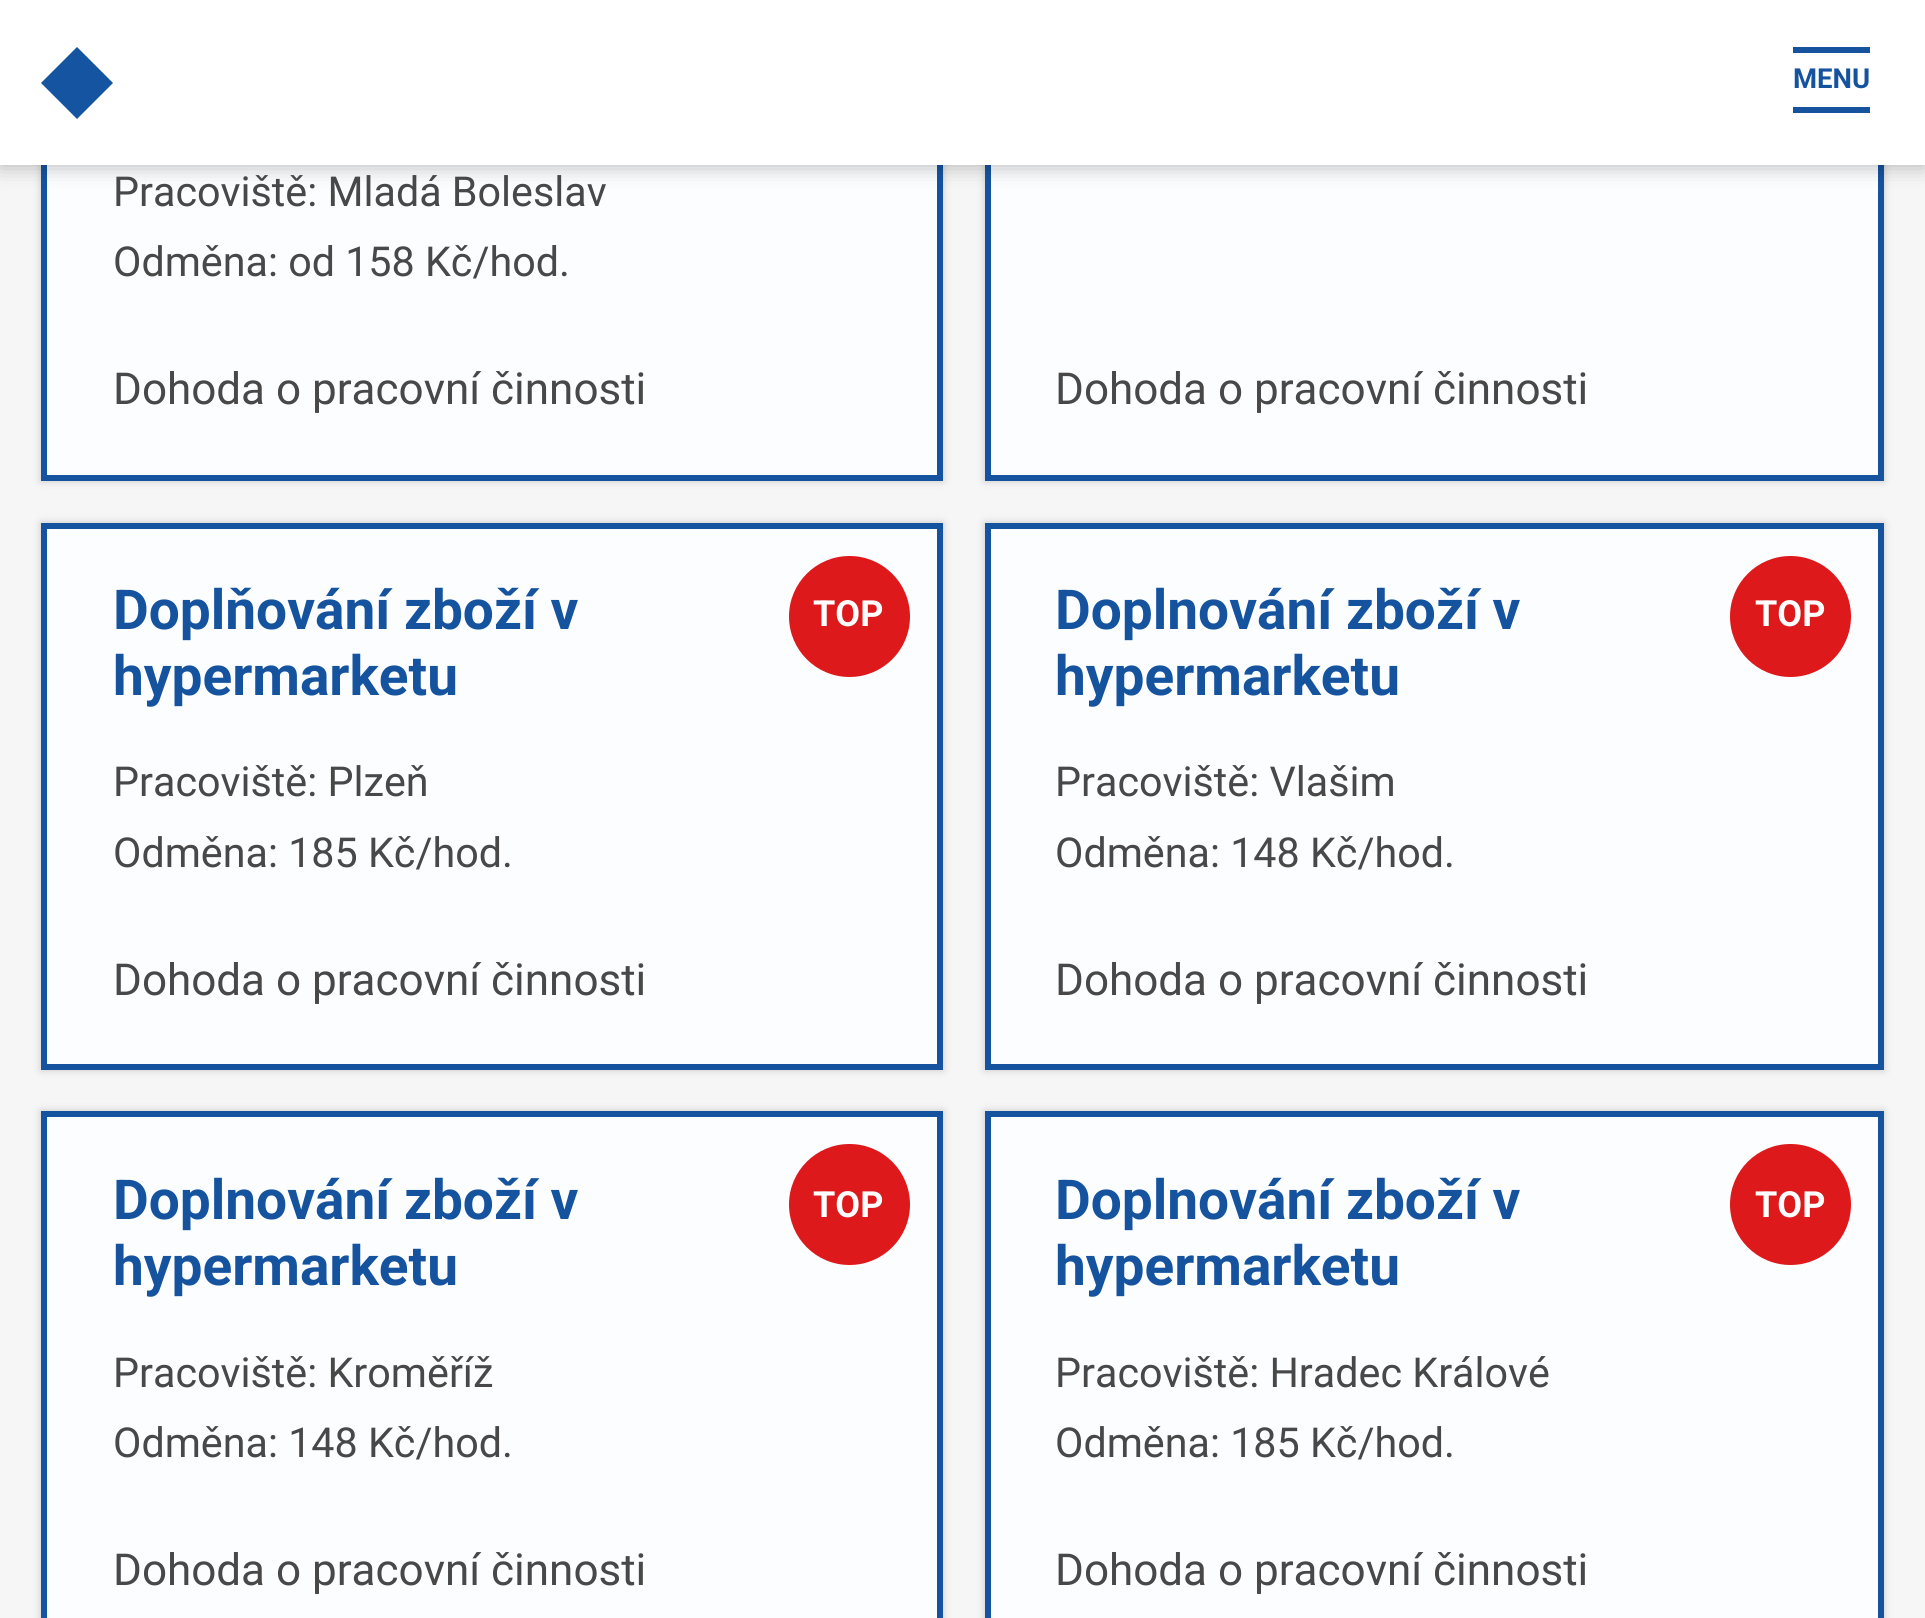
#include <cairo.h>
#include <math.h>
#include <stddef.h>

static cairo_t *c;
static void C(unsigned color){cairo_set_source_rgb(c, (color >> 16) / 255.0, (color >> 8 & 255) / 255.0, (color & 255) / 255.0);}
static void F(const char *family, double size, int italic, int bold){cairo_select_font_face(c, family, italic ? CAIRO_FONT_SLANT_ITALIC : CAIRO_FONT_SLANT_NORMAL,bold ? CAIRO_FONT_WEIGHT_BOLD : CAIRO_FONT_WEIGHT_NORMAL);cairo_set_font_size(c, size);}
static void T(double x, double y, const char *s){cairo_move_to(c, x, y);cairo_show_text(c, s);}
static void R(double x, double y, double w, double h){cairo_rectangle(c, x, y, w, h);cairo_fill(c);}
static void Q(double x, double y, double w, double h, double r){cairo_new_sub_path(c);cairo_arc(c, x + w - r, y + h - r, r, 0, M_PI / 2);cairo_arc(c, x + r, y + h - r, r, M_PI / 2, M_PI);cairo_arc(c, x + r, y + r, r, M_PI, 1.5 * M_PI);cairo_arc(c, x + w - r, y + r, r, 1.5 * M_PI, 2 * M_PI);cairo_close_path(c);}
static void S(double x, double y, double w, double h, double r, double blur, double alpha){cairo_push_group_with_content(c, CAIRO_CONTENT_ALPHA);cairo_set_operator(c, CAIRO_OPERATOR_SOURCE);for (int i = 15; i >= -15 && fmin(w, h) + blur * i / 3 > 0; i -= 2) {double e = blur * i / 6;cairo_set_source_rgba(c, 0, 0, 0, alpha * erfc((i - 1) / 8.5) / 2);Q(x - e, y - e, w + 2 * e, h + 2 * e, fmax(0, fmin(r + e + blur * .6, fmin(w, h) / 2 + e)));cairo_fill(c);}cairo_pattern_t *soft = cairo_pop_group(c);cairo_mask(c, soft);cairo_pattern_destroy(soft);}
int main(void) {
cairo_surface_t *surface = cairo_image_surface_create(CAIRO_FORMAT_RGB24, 1925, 1618);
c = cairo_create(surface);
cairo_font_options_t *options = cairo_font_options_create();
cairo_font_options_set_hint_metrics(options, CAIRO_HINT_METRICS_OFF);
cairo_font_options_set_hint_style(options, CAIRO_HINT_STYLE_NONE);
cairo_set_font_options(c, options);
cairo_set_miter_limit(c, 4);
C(0xf6f6f6);
cairo_paint(c);
C(0x000000);
S(41,-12,902,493,0,4,.2);
C(0xfbfdff);
R(47,165,890,310);
cairo_rectangle(c,44,-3,896,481);
C(0x15539f);
cairo_set_line_width(c,6);
cairo_stroke(c);
C(0x000000);
S(985,-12,899,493,0,4,.2);
C(0xfbfdff);
R(991,165,887,310);
cairo_rectangle(c,988,-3,893,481);
C(0x15539f);
cairo_stroke(c);
C(0x000000);
S(0,0,1925,165,0,11,.3);
C(0xffffff);
R(0,0,1925,165);
C(0x1554a0);
cairo_new_path(c);
cairo_move_to(c,77,119);
cairo_line_to(c,41,83);
cairo_line_to(c,77,47);
cairo_line_to(c,113,83);
cairo_close_path(c);
cairo_fill(c);
C(0x15539f);
R(1793,47,77,6);
R(1793,107,77,6);
F("Roboto",27.5,0,1);
T(1793,88,"MENU");
F("Roboto",41.25,0,0);
C(0x484848);
T(113,206,"Pracoviště: Mladá Boleslav");
T(113,276,"Odměna: od 158 Kč/hod.");
F("Roboto",44,0,0);
T(113,404,"Dohoda o pracovní činnosti");
T(1055,404,"Dohoda o pracovní činnosti");
C(0x000000);
S(41,523,902,547,0,4,.2);
C(0xfbfdff);
cairo_rectangle(c,44,526,896,541);
cairo_fill_preserve(c);
C(0x15539f);
cairo_stroke(c);
F("Roboto",55,0,1);
T(113,629,"Doplňování zboží v");
T(113,695,"hypermarketu");
C(0xdd191b);
cairo_new_path(c);
cairo_arc(c,849.5,616.5,60.5,0,2 * M_PI);
cairo_fill(c);
F("Roboto",36,0,1);
C(0xffffff);
T(813,626,"TOP");
F("Roboto",41.25,0,0);
C(0x484848);
T(113,796,"Pracoviště: Plzeň");
T(113,867,"Odměna: 185 Kč/hod.");
F("Roboto",44,0,0);
T(113,995,"Dohoda o pracovní činnosti");
C(0x000000);
S(985,523,899,547,0,4,.2);
C(0xfbfdff);
cairo_rectangle(c,988,526,893,541);
cairo_fill_preserve(c);
C(0x15539f);
cairo_stroke(c);
F("Roboto",55,0,1);
T(1055,629,"Doplnování zboží v");
T(1055,695,"hypermarketu");
C(0xdd191b);
cairo_new_path(c);
cairo_arc(c,1790.5,616.5,60.5,0,2 * M_PI);
cairo_fill(c);
F("Roboto",36,0,1);
C(0xffffff);
T(1755,626,"TOP");
F("Roboto",41.25,0,0);
C(0x484848);
T(1055,796,"Pracoviště: Vlašim");
T(1055,867,"Odměna: 148 Kč/hod.");
F("Roboto",44,0,0);
T(1055,995,"Dohoda o pracovní činnosti");
C(0x000000);
S(41,1111,902,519,0,4,.2);
C(0xfbfdff);
cairo_rectangle(c,44,1114,896,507);
cairo_fill_preserve(c);
C(0x15539f);
cairo_stroke(c);
F("Roboto",55,0,1);
T(113,1219,"Doplnování zboží v");
T(113,1285,"hypermarketu");
C(0xdd191b);
cairo_new_path(c);
cairo_arc(c,849.5,1204.5,60.5,0,2 * M_PI);
cairo_fill(c);
F("Roboto",36,0,1);
C(0xffffff);
T(813,1217,"TOP");
F("Roboto",41.25,0,0);
C(0x484848);
T(113,1387,"Pracoviště: Kroměříž");
T(113,1457,"Odměna: 148 Kč/hod.");
F("Roboto",44,0,0);
T(113,1585,"Dohoda o pracovní činnosti");
C(0x000000);
S(985,1111,899,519,0,4,.2);
C(0xfbfdff);
cairo_rectangle(c,988,1114,893,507);
cairo_fill_preserve(c);
C(0x15539f);
cairo_stroke(c);
F("Roboto",55,0,1);
T(1055,1219,"Doplnování zboží v");
T(1055,1285,"hypermarketu");
C(0xdd191b);
cairo_new_path(c);
cairo_arc(c,1790.5,1204.5,60.5,0,2 * M_PI);
cairo_fill(c);
F("Roboto",36,0,1);
C(0xffffff);
T(1755,1217,"TOP");
F("Roboto",41.25,0,0);
C(0x484848);
T(1055,1387,"Pracoviště: Hradec Králové");
T(1055,1457,"Odměna: 185 Kč/hod.");
F("Roboto",44,0,0);
T(1055,1585,"Dohoda o pracovní činnosti");
cairo_surface_write_to_png(surface, "o.png");
cairo_font_options_destroy(options);
cairo_destroy(c);
cairo_surface_destroy(surface);
return 0;
}
